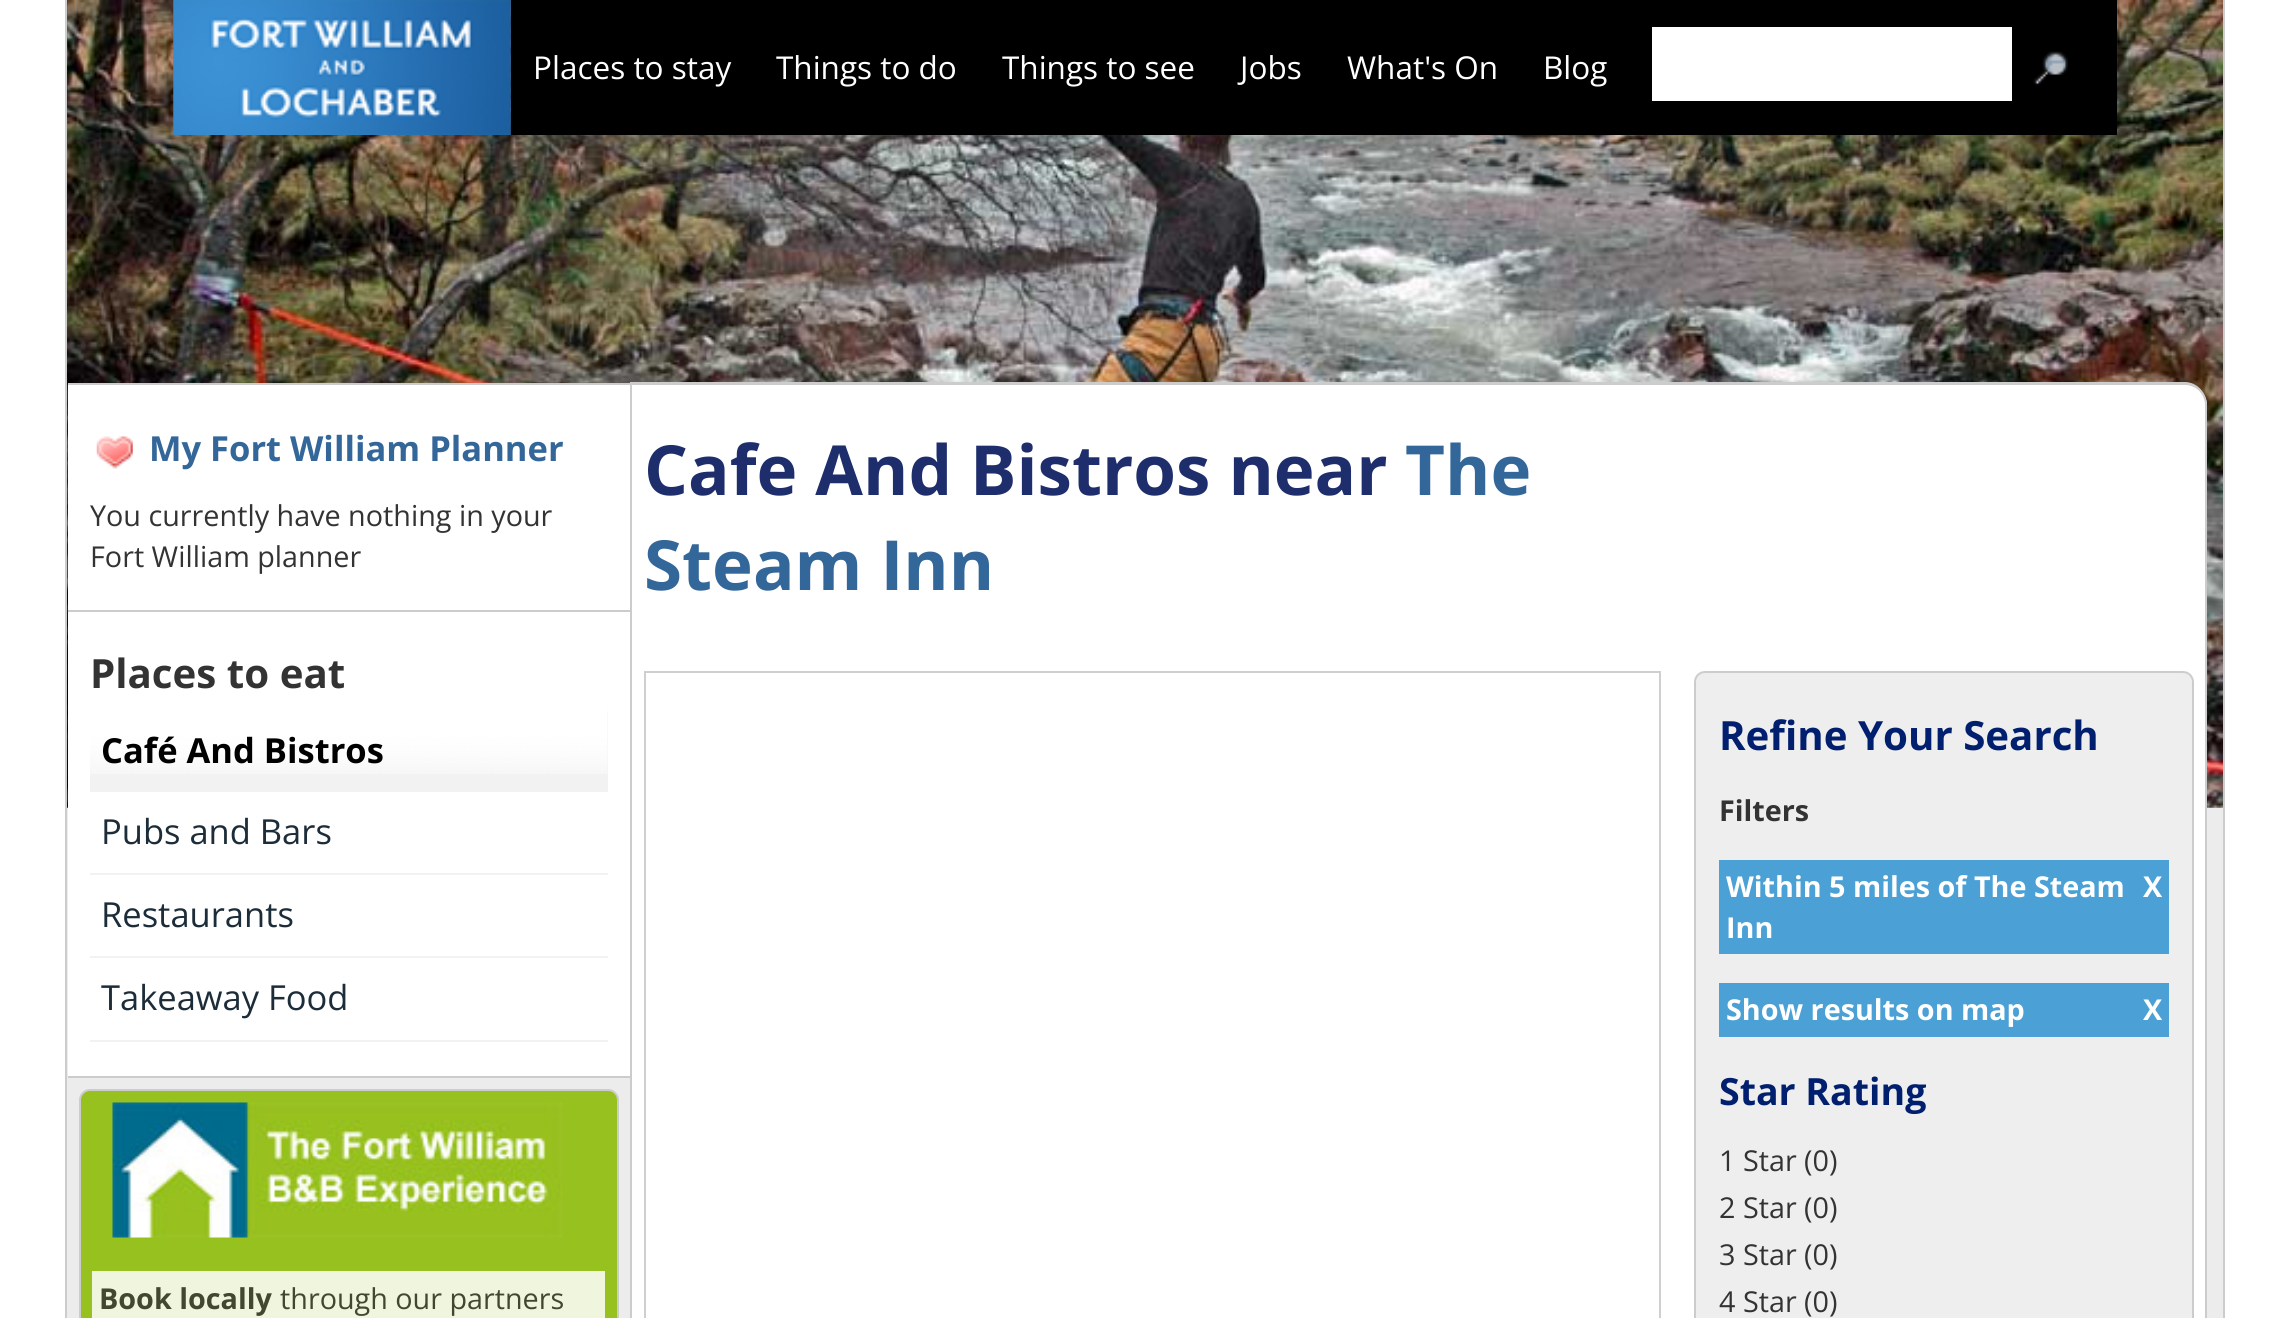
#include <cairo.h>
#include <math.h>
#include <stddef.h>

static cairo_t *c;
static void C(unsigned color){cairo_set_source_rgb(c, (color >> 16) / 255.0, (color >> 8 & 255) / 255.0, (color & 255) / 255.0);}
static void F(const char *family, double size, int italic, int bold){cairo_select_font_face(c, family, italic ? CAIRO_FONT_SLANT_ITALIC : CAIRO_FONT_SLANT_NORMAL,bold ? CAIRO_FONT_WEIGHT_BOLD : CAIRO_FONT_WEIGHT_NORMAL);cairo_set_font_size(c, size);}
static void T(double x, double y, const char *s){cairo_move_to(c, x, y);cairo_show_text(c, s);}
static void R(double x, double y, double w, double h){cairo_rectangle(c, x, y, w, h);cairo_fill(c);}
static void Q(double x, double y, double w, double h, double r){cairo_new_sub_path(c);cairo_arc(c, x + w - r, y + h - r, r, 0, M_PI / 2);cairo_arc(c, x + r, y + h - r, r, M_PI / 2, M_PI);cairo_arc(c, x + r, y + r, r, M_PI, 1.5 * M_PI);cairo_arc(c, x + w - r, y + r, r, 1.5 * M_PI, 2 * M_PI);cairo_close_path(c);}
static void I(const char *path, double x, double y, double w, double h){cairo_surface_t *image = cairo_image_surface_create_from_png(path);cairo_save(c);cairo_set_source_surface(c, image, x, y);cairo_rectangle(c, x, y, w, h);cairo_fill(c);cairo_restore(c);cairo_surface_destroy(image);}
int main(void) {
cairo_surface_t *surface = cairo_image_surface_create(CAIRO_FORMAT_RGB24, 2289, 1318);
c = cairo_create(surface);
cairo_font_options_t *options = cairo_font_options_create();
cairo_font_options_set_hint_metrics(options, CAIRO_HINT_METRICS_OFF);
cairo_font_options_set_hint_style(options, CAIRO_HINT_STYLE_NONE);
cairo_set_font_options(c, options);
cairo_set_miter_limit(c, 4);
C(0xffffff);
cairo_paint(c);
C(0xececec);
R(67,807,2156,511);
I("3.png",67,0,2156,808);
I("1.png",173,0,338,135);
C(0x000000);
R(511,0,1606,135);
F("Open Sans",31.5,0,0);
C(0xffffff);
T(533,79,"Places to stay");
T(776,79,"Things to do");
T(1002,79,"Things to see");
T(1240,79,"Jobs");
T(1347,79,"What's On");
T(1543,79,"Blog");
R(1652,27,360,74);
I("2.png",2033,51,35,35);
C(0xcccccc);
R(2223,0,2,1318);
R(65,0,2,1318);
C(0xffffff);
R(68,385,562,225);
C(0xcccccc);
R(68,383,562,2);
I("4.png",96,436,37,33);
F("Open Sans",34.5,0,1);
C(0x336699);
T(149,461,"My Fort William Planner");
F("Open Sans",28.75,0,0);
C(0x333333);
T(90,526,"You currently have nothing in your");
T(90,567,"Fort William planner");
C(0xffffff);
R(68,612,562,464);
C(0xcccccc);
R(68,610,562,2);
R(68,1076,562,2);
F("Open Sans",40.25,0,1);
C(0x333333);
T(90,688,"Places to eat");
C(0xf2f2f2);
R(90,711,518,81);
I("5.png",90,711,518,63);
F("Open Sans",34.5,0,1);
C(0x000000);
T(101,763,"Café And Bistros");
C(0xf2f2f2);
R(90,873,518,2);
F("Open Sans",34.5,0,0);
C(0x1c2d39);
T(101,844,"Pubs and Bars");
C(0xf2f2f2);
R(90,956,518,2);
C(0x1c2d39);
T(101,927,"Restaurants");
C(0xf2f2f2);
R(90,1040,518,2);
C(0x1c2d39);
T(101,1010,"Takeaway Food");
C(0x97c11f);
Q(80,1090,538,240,10);
cairo_fill_preserve(c);
C(0xcccccc);
cairo_stroke(c);
I("6.png",112,1102,451,136);
C(0xeff6dd);
R(92,1271,513,47);
F("Open Sans",28.75,0,1);
C(0x424830);
T(99,1309,"Book locally");
F("Open Sans",28.75,0,0);
T(280,1309,"through our partners");
C(0xffffff);
cairo_new_path(c);
cairo_move_to(c,630,383);
cairo_line_to(c,2184,383);
cairo_curve_to(c,2196.5,383,2207,393.5,2207,406);
cairo_line_to(c,2207,637);
cairo_line_to(c,630,637);
cairo_close_path(c);
cairo_fill(c);
C(0xcccccc);
cairo_set_fill_rule(c,CAIRO_FILL_RULE_EVEN_ODD);
cairo_new_path(c);
cairo_move_to(c,630,382);
cairo_line_to(c,2185,382);
cairo_curve_to(c,2197,382,2207,393,2207,405);
cairo_line_to(c,2207,637);
cairo_line_to(c,630,637);
cairo_close_path(c);
cairo_move_to(c,632,385);
cairo_line_to(c,2185,385);
cairo_curve_to(c,2196,385,2205,394,2205,405);
cairo_line_to(c,2205,637);
cairo_line_to(c,632,637);
cairo_close_path(c);
cairo_fill(c);
F("Open Sans",69.1,0,1);
C(0x1e2d6b);
T(644,495,"Cafe And Bistros near");
C(0x336699);
T(1405,495,"The");
T(644,590,"Steam Inn");
C(0xffffff);
R(632,637,1573,681);
C(0xcccccc);
R(2205,637,2,681);
R(630,637,2,681);
cairo_rectangle(c,645,672,1015,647);
C(0xcfcfcf);
cairo_stroke(c);
C(0xeeeeee);
Q(1695,672,498,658,10);
cairo_fill_preserve(c);
C(0xcccccc);
cairo_stroke(c);
F("Open Sans",40.25,0,1);
C(0x001f6e);
T(1719,750,"Refine Your Search");
F("Open Sans",28.75,0,1);
C(0x333333);
T(1719,821,"Filters");
C(0x4ba1d5);
R(1719,860,450,94);
C(0xffffff);
T(1726,897,"Within 5 miles of The Steam");
T(2143,897,"X");
T(1726,938,"Inn");
C(0x4ba1d5);
R(1719,983,450,54);
C(0xffffff);
T(1726,1020,"Show results on map");
T(2143,1020,"X");
F("Open Sans",37.5,0,1);
C(0x001f6e);
T(1719,1105,"Star Rating");
F("Open Sans",28.75,0,0);
C(0x333333);
T(1719,1171,"1 Star (0)");
T(1719,1218,"2 Star (0)");
T(1719,1265,"3 Star (0)");
T(1719,1312,"4 Star (0)");
cairo_surface_write_to_png(surface, "o.png");
cairo_font_options_destroy(options);
cairo_destroy(c);
cairo_surface_destroy(surface);
return 0;
}
